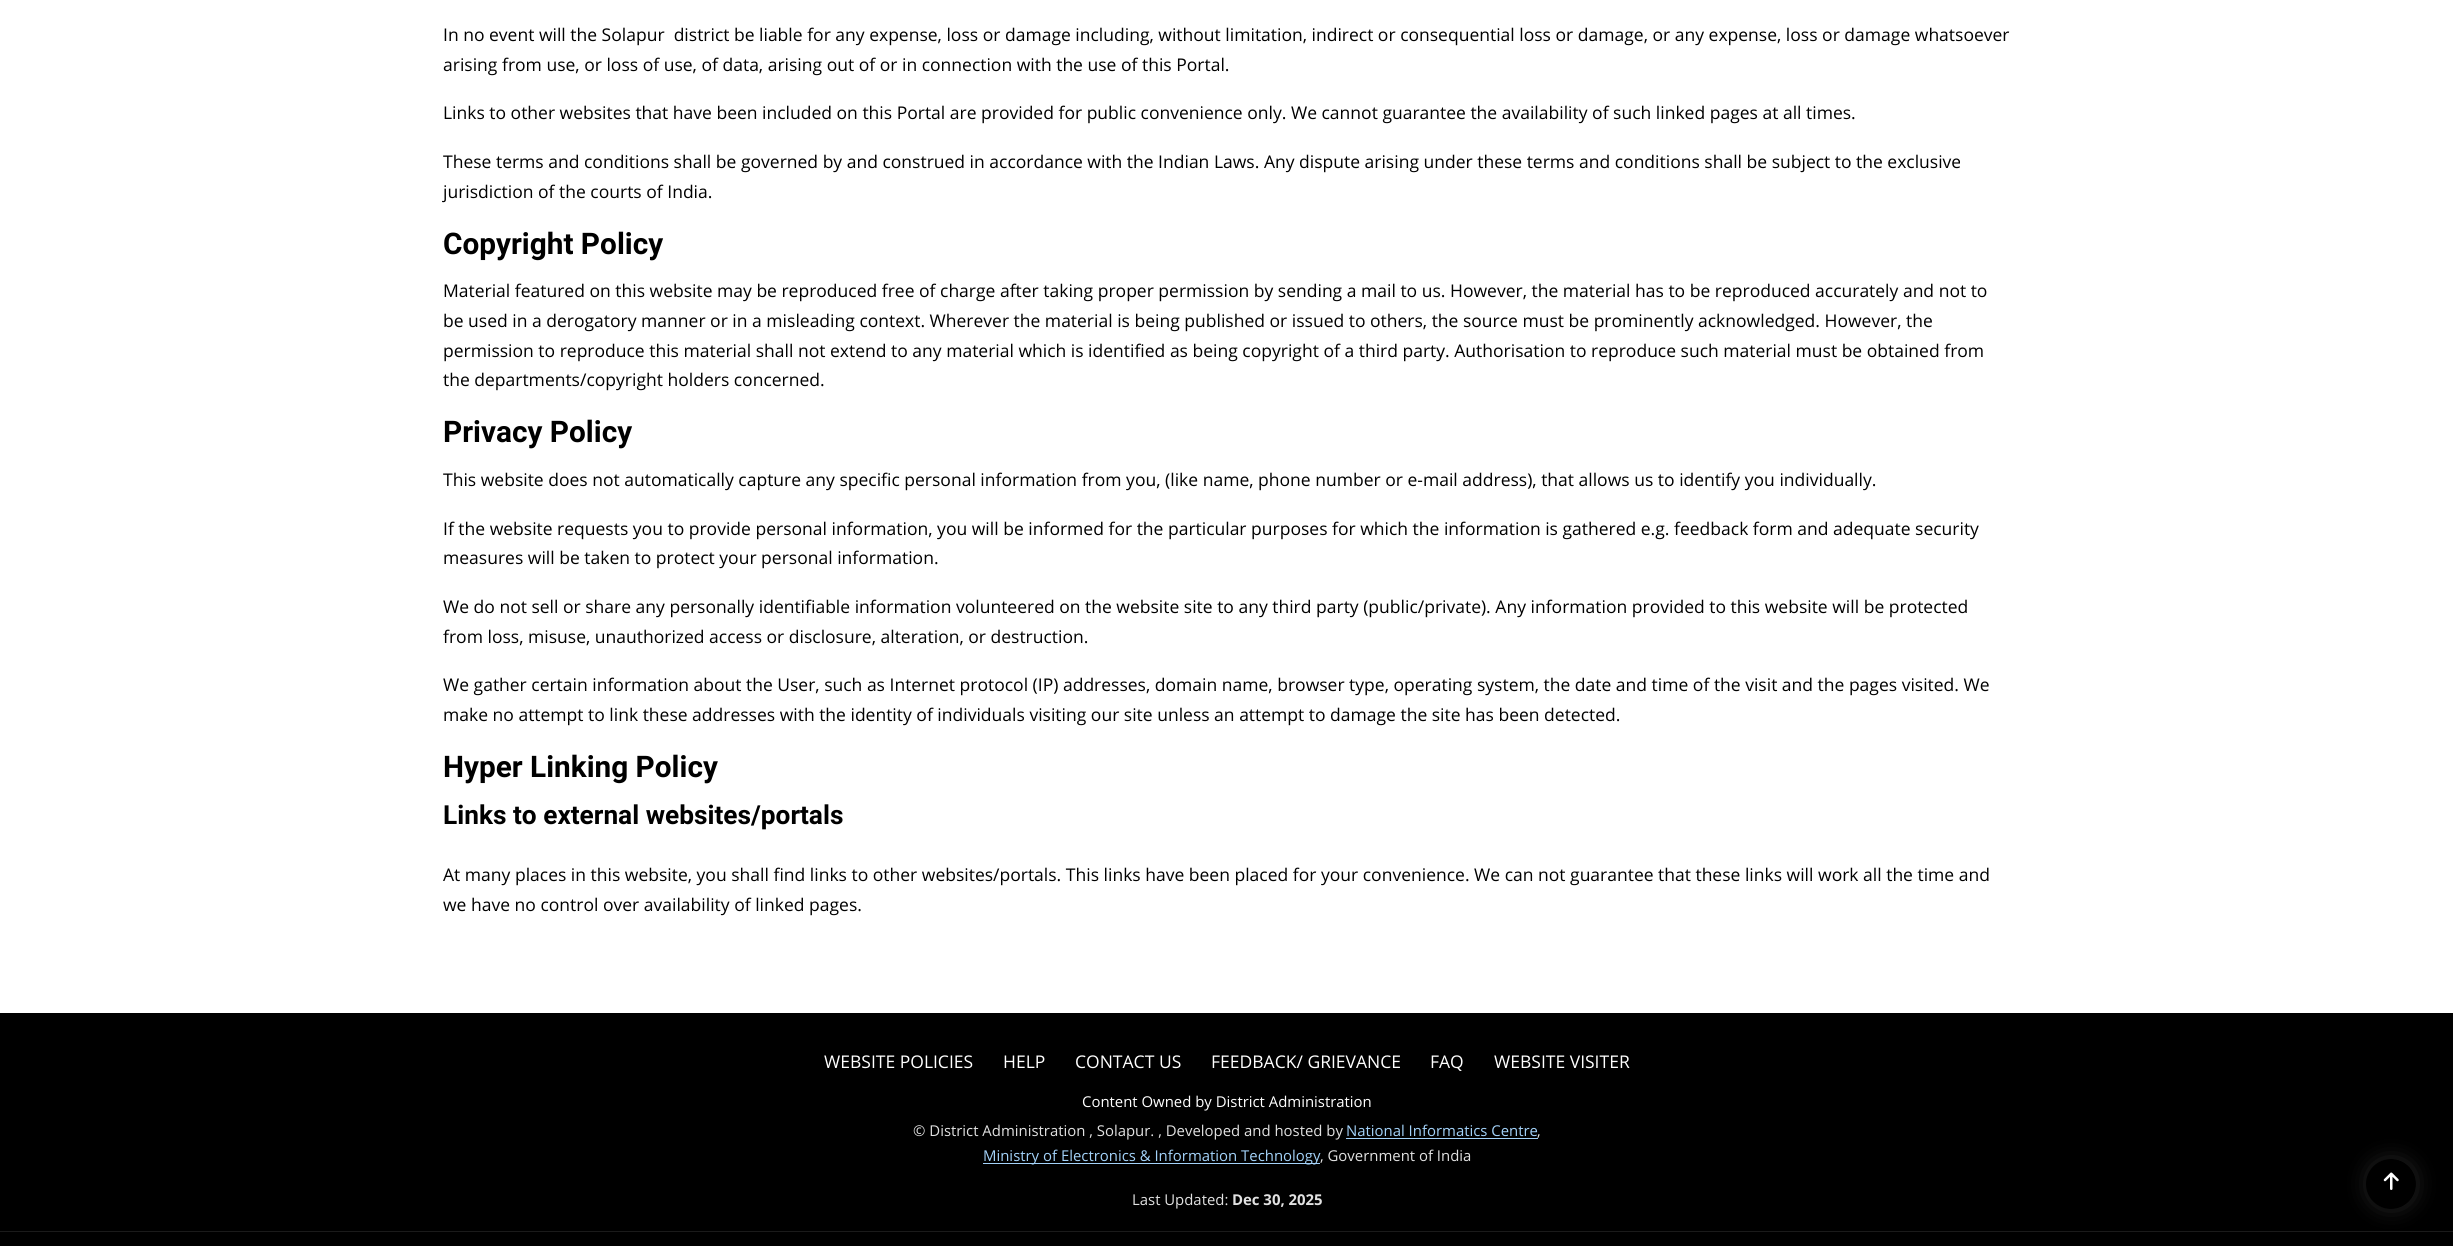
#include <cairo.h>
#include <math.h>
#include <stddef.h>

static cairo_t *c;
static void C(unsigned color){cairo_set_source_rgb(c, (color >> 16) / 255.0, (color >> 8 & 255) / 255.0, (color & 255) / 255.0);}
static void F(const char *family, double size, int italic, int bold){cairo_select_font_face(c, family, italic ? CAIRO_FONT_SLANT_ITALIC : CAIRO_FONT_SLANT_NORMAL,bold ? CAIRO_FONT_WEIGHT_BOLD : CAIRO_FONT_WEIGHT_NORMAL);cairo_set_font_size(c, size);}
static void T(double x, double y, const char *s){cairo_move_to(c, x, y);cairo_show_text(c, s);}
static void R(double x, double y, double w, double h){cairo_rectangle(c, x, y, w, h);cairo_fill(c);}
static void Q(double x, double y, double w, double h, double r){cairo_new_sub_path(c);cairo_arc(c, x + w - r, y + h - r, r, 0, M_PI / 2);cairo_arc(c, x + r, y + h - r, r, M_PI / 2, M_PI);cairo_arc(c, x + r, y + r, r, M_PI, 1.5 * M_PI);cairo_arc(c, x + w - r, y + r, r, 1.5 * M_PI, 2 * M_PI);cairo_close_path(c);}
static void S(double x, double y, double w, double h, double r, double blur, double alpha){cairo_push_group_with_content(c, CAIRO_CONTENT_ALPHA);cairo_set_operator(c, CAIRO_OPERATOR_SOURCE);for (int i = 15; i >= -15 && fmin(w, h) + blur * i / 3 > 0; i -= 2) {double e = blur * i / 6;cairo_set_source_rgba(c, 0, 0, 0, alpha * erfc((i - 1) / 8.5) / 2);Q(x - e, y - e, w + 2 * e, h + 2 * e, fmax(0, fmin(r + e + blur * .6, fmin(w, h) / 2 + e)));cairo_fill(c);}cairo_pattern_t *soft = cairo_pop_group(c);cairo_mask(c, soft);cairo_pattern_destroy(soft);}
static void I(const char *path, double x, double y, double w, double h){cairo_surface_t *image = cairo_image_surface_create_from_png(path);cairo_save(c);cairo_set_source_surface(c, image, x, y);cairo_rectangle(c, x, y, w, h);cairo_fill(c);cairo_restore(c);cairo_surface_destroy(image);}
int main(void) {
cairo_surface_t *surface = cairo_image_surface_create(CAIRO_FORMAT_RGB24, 2453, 1246);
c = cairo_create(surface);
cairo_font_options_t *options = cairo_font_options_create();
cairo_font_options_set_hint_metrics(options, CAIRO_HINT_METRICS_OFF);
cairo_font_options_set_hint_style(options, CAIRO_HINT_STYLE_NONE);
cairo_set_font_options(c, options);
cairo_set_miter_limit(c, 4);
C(0xffffff);
cairo_paint(c);
F("Open Sans",17.5,0,0);
C(0x000000);
T(443,41,"In no event will the Solapur  district be liable for any expense, loss or damage including, without limitation, indirect or consequential loss or damage, or any expense, loss or damage whatsoever");
T(443,71,"arising from use, or loss of use, of data, arising out of or in connection with the use of this Portal.");
T(443,119,"Links to other websites that have been included on this Portal are provided for public convenience only. We cannot guarantee the availability of such linked pages at all times.");
T(443,168,"These terms and conditions shall be governed by and construed in accordance with the Indian Laws. Any dispute arising under these terms and conditions shall be subject to the exclusive");
T(443,198,"jurisdiction of the courts of India.");
F("Roboto",29.75,0,1);
T(443,254,"Copyright Policy");
F("Open Sans",17.5,0,0);
T(443,297,"Material featured on this website may be reproduced free of charge after taking proper permission by sending a mail to us. However, the material has to be reproduced accurately and not to");
T(443,327,"be used in a derogatory manner or in a misleading context. Wherever the material is being published or issued to others, the source must be prominently acknowledged. However, the");
T(443,357,"permission to reproduce this material shall not extend to any material which is identified as being copyright of a third party. Authorisation to reproduce such material must be obtained from");
T(443,386,"the departments/copyright holders concerned.");
F("Roboto",29.75,0,1);
T(443,442,"Privacy Policy");
F("Open Sans",17.5,0,0);
T(443,486,"This website does not automatically capture any specific personal information from you, (like name, phone number or e-mail address), that allows us to identify you individually.");
T(443,535,"If the website requests you to provide personal information, you will be informed for the particular purposes for which the information is gathered e.g. feedback form and adequate security");
T(443,564,"measures will be taken to protect your personal information.");
T(443,613,"We do not sell or share any personally identifiable information volunteered on the website site to any third party (public/private). Any information provided to this website will be protected");
T(443,643,"from loss, misuse, unauthorized access or disclosure, alteration, or destruction.");
T(443,691,"We gather certain information about the User, such as Internet protocol (IP) addresses, domain name, browser type, operating system, the date and time of the visit and the pages visited. We");
T(443,721,"make no attempt to link these addresses with the identity of individuals visiting our site unless an attempt to damage the site has been detected.");
F("Roboto",29.75,0,1);
T(443,777,"Hyper Linking Policy");
F("Roboto",26.25,0,1);
T(443,824,"Links to external websites/portals");
F("Open Sans",17.5,0,0);
T(443,881,"At many places in this website, you shall find links to other websites/portals. This links have been placed for your convenience. We can not guarantee that these links will work all the time and");
T(443,911,"we have no control over availability of linked pages.");
R(0,1013,2453,233);
C(0xffffff);
T(824,1068,"WEBSITE POLICIES");
T(1003,1068,"HELP");
T(1075,1068,"CONTACT US");
T(1211,1068,"FEEDBACK/ GRIEVANCE");
T(1430,1068,"FAQ");
T(1494,1068,"WEBSITE VISITER");
F("Open Sans",14.9,0,0);
T(1082,1107,"Content Owned by District Administration");
C(0xe1e1e1);
T(913,1136,"© District Administration , Solapur. , Developed and hosted by");
C(0xa3d2f9);
T(1346,1136,"National Informatics Centre");
R(1346,1138,192,1);
C(0xe1e1e1);
T(1537,1136,",");
C(0xa3d2f9);
R(983,1163,337,1);
T(983,1161,"Ministry of Electronics & Information Technology");
C(0xe1e1e1);
T(1320,1161,", Government of India");
T(1132,1205,"Last Updated:");
F("Open Sans",14.9,0,1);
T(1232,1205,"Dec 30, 2025");
C(0x1a1a1a);
R(0,1231,2453,1);
C(0x3c3c3c);
S(2373,1165,37,38,18.5,12,1);
C(0x000000);
cairo_arc(c,2391,1184,25,0,2 * M_PI);
cairo_fill(c);
I("1.png",2383,1172,16,18);
cairo_surface_write_to_png(surface, "o.png");
cairo_font_options_destroy(options);
cairo_destroy(c);
cairo_surface_destroy(surface);
return 0;
}
